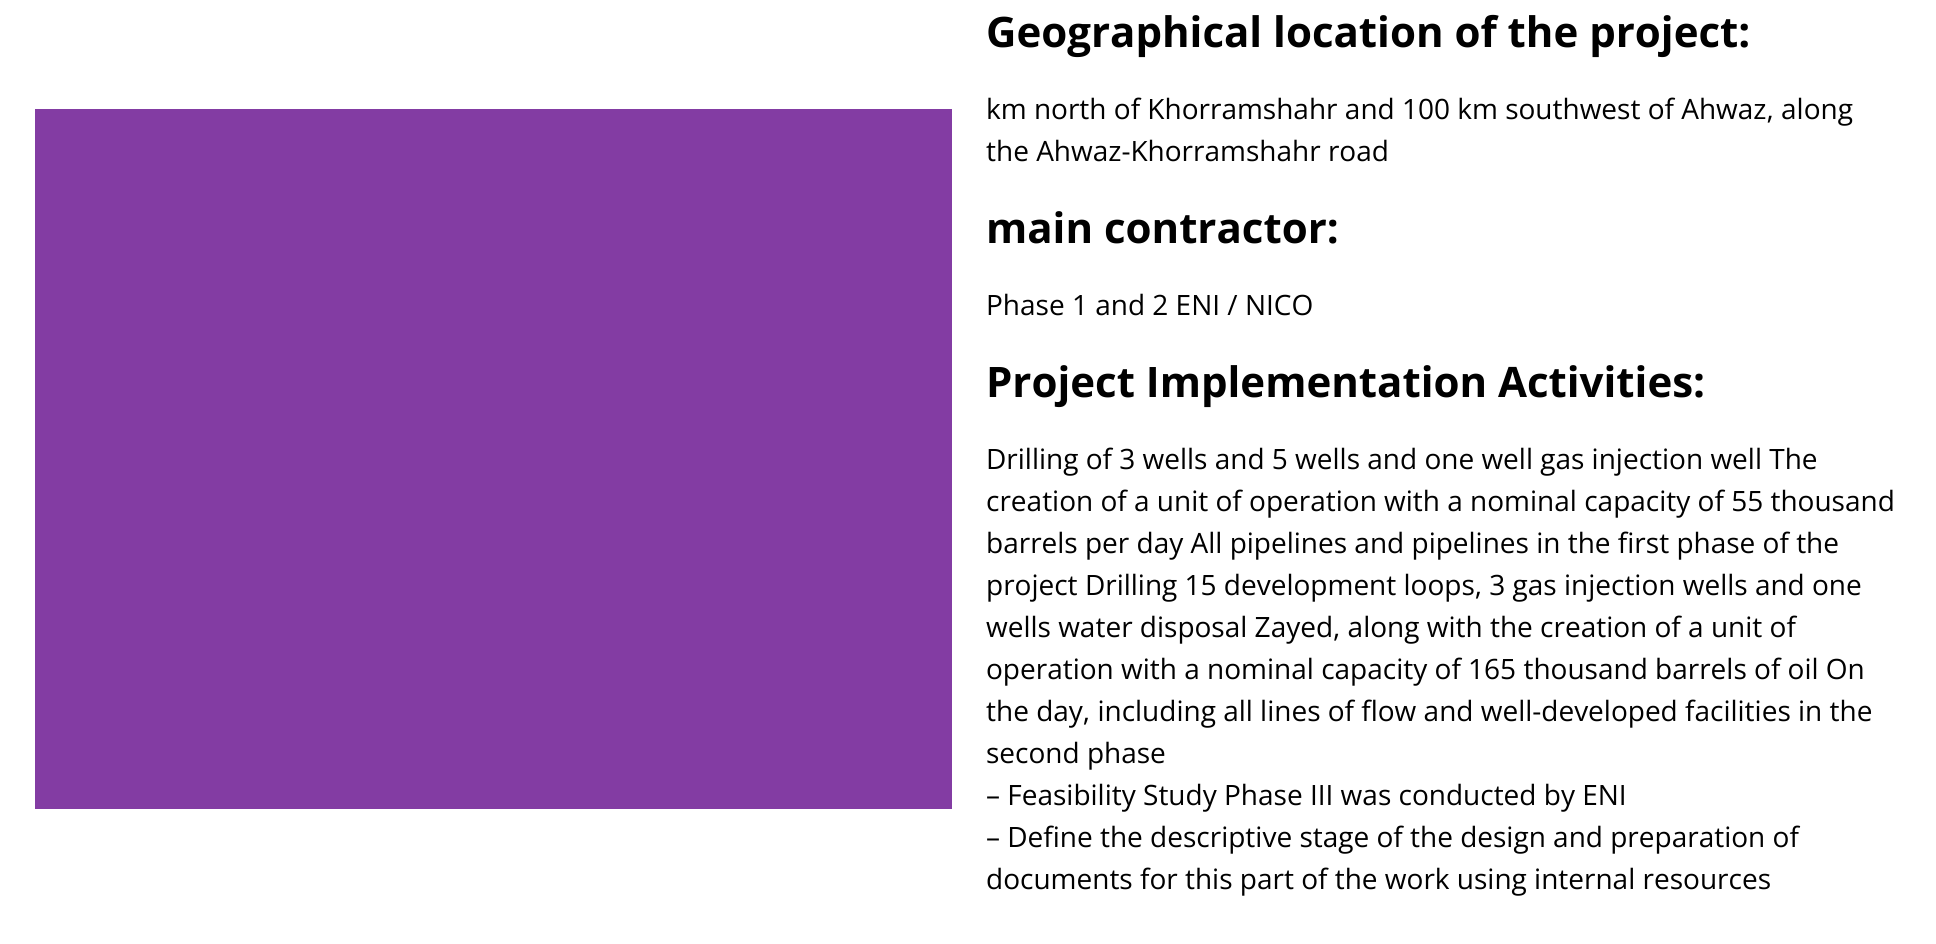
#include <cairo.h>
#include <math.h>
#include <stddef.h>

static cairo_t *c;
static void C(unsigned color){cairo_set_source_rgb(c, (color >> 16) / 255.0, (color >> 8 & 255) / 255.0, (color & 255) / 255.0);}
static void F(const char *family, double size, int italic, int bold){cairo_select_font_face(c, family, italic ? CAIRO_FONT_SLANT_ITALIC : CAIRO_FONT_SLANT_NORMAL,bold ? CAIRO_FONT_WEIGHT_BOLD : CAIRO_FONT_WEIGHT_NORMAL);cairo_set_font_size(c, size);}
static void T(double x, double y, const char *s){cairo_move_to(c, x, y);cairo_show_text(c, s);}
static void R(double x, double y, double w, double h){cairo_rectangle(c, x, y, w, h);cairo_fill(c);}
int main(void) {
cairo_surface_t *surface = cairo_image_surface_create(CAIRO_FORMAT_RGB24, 1936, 944);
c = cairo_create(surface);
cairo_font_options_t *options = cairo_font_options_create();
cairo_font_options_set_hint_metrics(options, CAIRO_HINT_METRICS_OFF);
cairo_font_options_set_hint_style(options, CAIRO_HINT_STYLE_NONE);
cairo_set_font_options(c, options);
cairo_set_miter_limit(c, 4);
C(0xffffff);
cairo_paint(c);
C(0x833ca3);
R(35,109,917,700);
F("Open Sans",42,0,1);
C(0x000000);
T(986,47,"Geographical location of the project:");
F("Open Sans",28,0,0);
T(986,119,"km north of Khorramshahr and 100 km southwest of Ahwaz, along");
T(986,161,"the Ahwaz-Khorramshahr road");
F("Open Sans",42,0,1);
T(986,243,"main contractor:");
F("Open Sans",28,0,0);
T(986,315,"Phase 1 and 2 ENI / NICO");
F("Open Sans",42,0,1);
T(986,397,"Project Implementation Activities:");
F("Open Sans",28,0,0);
T(986,469,"Drilling of 3 wells and 5 wells and one well gas injection well The");
T(986,511,"creation of a unit of operation with a nominal capacity of 55 thousand");
T(986,553,"barrels per day All pipelines and pipelines in the first phase of the");
T(986,595,"project Drilling 15 development loops, 3 gas injection wells and one");
T(986,637,"wells water disposal Zayed, along with the creation of a unit of");
T(986,679,"operation with a nominal capacity of 165 thousand barrels of oil On");
T(986,721,"the day, including all lines of flow and well-developed facilities in the");
T(986,763,"second phase");
T(986,805,"– Feasibility Study Phase III was conducted by ENI");
T(986,847,"– Define the descriptive stage of the design and preparation of");
T(986,889,"documents for this part of the work using internal resources");
cairo_surface_write_to_png(surface, "o.png");
cairo_font_options_destroy(options);
cairo_destroy(c);
cairo_surface_destroy(surface);
return 0;
}
